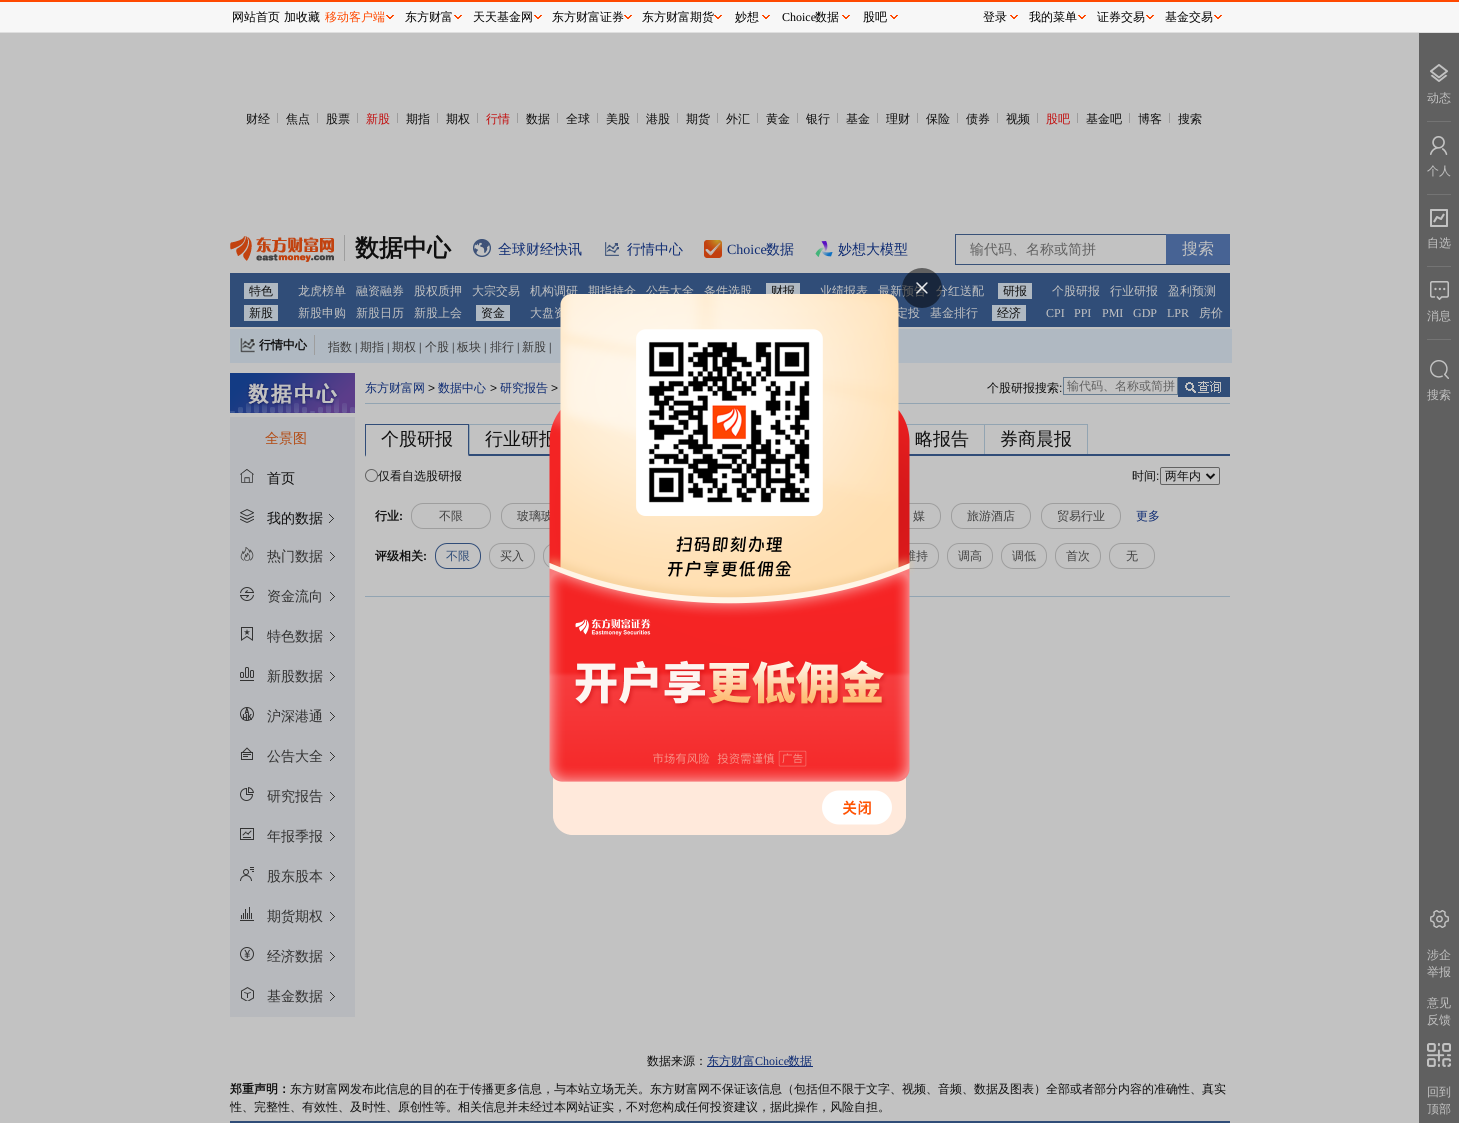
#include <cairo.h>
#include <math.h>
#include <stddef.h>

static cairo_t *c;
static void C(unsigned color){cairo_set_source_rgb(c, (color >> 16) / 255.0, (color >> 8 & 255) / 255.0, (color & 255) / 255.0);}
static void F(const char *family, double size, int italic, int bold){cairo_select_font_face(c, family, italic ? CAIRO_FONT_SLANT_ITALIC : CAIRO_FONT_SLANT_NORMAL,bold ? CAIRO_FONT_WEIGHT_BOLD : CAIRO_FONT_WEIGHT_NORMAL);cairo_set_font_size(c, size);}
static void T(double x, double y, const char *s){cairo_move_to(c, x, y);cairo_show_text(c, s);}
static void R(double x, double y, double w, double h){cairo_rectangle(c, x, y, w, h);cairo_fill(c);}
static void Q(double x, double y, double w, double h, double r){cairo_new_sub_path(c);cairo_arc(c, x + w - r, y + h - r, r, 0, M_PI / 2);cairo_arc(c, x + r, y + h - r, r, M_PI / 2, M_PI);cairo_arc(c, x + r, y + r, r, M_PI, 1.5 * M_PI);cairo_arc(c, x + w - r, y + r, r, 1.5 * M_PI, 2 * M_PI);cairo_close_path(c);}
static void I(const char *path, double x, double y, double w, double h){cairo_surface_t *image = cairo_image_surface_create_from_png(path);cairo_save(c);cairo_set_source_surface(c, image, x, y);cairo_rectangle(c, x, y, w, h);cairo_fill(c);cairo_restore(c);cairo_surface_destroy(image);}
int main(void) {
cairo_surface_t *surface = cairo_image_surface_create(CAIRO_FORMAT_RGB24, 1459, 1123);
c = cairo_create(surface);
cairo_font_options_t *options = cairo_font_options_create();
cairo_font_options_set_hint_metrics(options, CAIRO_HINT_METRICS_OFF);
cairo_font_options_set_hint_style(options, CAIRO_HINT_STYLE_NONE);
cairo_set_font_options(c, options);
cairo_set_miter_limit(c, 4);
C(0xc2c2c2);
cairo_paint(c);
C(0xf7f7f7);
R(0,2,1459,30);
C(0xff4901);
R(0,0,1459,2);
C(0xdfdfdf);
R(0,32,1459,1);
F("WenQuanYi Zen Hei Medium",12,0,0);
C(0x000000);
T(232,21,"网站首页");
T(284,21,"加收藏");
I("1.png",386,15,8,4);
C(0xff4900);
T(325,21,"移动客户端");
I("1.png",454,15,8,4);
C(0x000000);
T(405,21,"东方财富");
I("1.png",534,15,8,4);
T(473,21,"天天基金网");
I("1.png",624,15,8,4);
T(552,21,"东方财富证券");
I("1.png",714,15,8,4);
T(642,21,"东方财富期货");
I("1.png",762,15,8,4);
T(735,21,"妙想");
I("1.png",842,15,8,4);
F("Liberation Serif",12,0,0);
T(782,21,"Choice");
F("WenQuanYi Zen Hei Medium",12,0,0);
T(815,21,"数据");
I("1.png",890,15,8,4);
T(863,21,"股吧");
I("1.png",1010,15,8,4);
T(983,21,"登录");
I("1.png",1078,15,8,4);
T(1029,21,"我的菜单");
I("1.png",1146,15,8,4);
T(1097,21,"证券交易");
I("1.png",1214,15,8,4);
T(1165,21,"基金交易");
C(0x0f0f0f);
T(246,123,"财经");
C(0x9c9c9c);
R(277,113,1,10);
C(0x0f0f0f);
T(286,123,"焦点");
C(0x9c9c9c);
R(317,113,1,10);
C(0x0f0f0f);
T(326,123,"股票");
C(0x9c9c9c);
R(357,113,1,10);
C(0xc20f0f);
T(366,123,"新股");
C(0x9c9c9c);
R(397,113,1,10);
C(0x0f0f0f);
T(406,123,"期指");
C(0x9c9c9c);
R(437,113,1,10);
C(0x0f0f0f);
T(446,123,"期权");
C(0x9c9c9c);
R(477,113,1,10);
C(0xc20f0f);
T(486,123,"行情");
C(0x9c9c9c);
R(517,113,1,10);
C(0x0f0f0f);
T(526,123,"数据");
C(0x9c9c9c);
R(557,113,1,10);
C(0x0f0f0f);
T(566,123,"全球");
C(0x9c9c9c);
R(597,113,1,10);
C(0x0f0f0f);
T(606,123,"美股");
C(0x9c9c9c);
R(637,113,1,10);
C(0x0f0f0f);
T(646,123,"港股");
C(0x9c9c9c);
R(677,113,1,10);
C(0x0f0f0f);
T(686,123,"期货");
C(0x9c9c9c);
R(717,113,1,10);
C(0x0f0f0f);
T(726,123,"外汇");
C(0x9c9c9c);
R(757,113,1,10);
C(0x0f0f0f);
T(766,123,"黄金");
C(0x9c9c9c);
R(797,113,1,10);
C(0x0f0f0f);
T(806,123,"银行");
C(0x9c9c9c);
R(837,113,1,10);
C(0x0f0f0f);
T(846,123,"基金");
C(0x9c9c9c);
R(877,113,1,10);
C(0x0f0f0f);
T(886,123,"理财");
C(0x9c9c9c);
R(917,113,1,10);
C(0x0f0f0f);
T(926,123,"保险");
C(0x9c9c9c);
R(957,113,1,10);
C(0x0f0f0f);
T(966,123,"债券");
C(0x9c9c9c);
R(997,113,1,10);
C(0x0f0f0f);
T(1006,123,"视频");
C(0x9c9c9c);
R(1037,113,1,10);
C(0xc20f0f);
T(1046,123,"股吧");
C(0x9c9c9c);
R(1077,113,1,10);
C(0x0f0f0f);
T(1086,123,"基金吧");
C(0x9c9c9c);
R(1129,113,1,10);
C(0x0f0f0f);
T(1138,123,"博客");
C(0x9c9c9c);
R(1169,113,1,10);
C(0x0f0f0f);
T(1178,123,"搜索");
C(0x304c78);
R(230,273,1000,2);
I("2.png",230,236,104,26);
F("WenQuanYi Zen Hei",24,0,1);
C(0x0f0f0f);
T(355,256,"数据中心");
C(0x9e9e9e);
R(344,235,1,26);
I("3.png",473,239,18,18);
F("WenQuanYi Zen Hei Medium",14,0,0);
C(0x0f2c73);
T(498,254,"全球财经快讯");
I("4.png",605,242,14,14);
T(627,254,"行情中心");
I("5.png",704,240,18,18);
F("Liberation Serif",14,0,0);
T(727,254,"Choice");
F("WenQuanYi Zen Hei Medium",14,0,0);
T(766,254,"数据");
I("6.png",815,241,18,16);
T(838,254,"妙想大模型");
C(0x385178);
R(955,234,211,1);
R(955,264,275,1);
R(955,234,1,31);
cairo_save(c);
cairo_rectangle(c,970,241,196,18);
cairo_clip(c);
C(0x616161);
T(970,254,"输代码、名称或简拼");
cairo_restore(c);
C(0x476394);
R(1166,234,64,30);
F("WenQuanYi Zen Hei Medium",16,0,0);
C(0xc2c2c2);
T(1182,254,"搜索");
C(0x304d78);
R(230,275,1000,52);
C(0xb0b9c2);
R(244,283,34,16);
F("WenQuanYi Zen Hei Medium",12,0,0);
C(0x0f0f0f);
T(249,295,"特色");
C(0xc2c2c2);
T(298,295,"龙虎榜单");
T(356,295,"融资融券");
T(414,295,"股权质押");
T(472,295,"大宗交易");
T(530,295,"机构调研");
T(588,295,"期指持仓");
T(646,295,"公告大全");
T(704,295,"条件选股");
C(0xb0b9c2);
R(766,283,34,11);
C(0x0f0f0f);
T(771,295,"财报");
C(0xc2c2c2);
T(820,295,"业绩报表");
T(878,295,"最新预告");
T(936,295,"分红送配");
C(0xb0b9c2);
R(998,283,34,16);
C(0x0f0f0f);
T(1003,295,"研报");
C(0xc2c2c2);
T(1052,295,"个股研报");
T(1110,295,"行业研报");
T(1168,295,"盈利预测");
C(0xb0b9c2);
R(244,305,34,16);
C(0x0f0f0f);
T(249,317,"新股");
C(0xc2c2c2);
T(298,317,"新股申购");
T(356,317,"新股日历");
T(414,317,"新股上会");
C(0xb0b9c2);
R(476,305,34,16);
C(0x0f0f0f);
T(481,317,"资金");
C(0xc2c2c2);
T(530,317,"大盘资");
T(896,317,"定投");
T(930,317,"基金排行");
C(0xb0b9c2);
R(992,305,34,16);
C(0x0f0f0f);
T(997,317,"经济");
F("Liberation Serif",12,0,0);
C(0xc2c2c2);
T(1046,317,"CPI");
T(1074,317,"PPI");
T(1102,317,"PMI");
T(1133,317,"GDP");
T(1167,317,"LPR");
F("WenQuanYi Zen Hei Medium",12,0,0);
T(1199,317,"房价");
C(0xb0b9c2);
R(230,329,1002,34);
C(0x9e9e9e);
R(314,335,1,20);
I("7.png",239,338,17,15);
F("WenQuanYi Zen Hei",12,0,1);
C(0x0f0f0f);
T(259,349,"行情中心");
F("WenQuanYi Zen Hei Medium",12,0,0);
C(0x3b3b3b);
T(328,351,"指数");
F("Liberation Serif",12,0,0);
C(0x0f0f0f);
T(355,351,"|");
F("WenQuanYi Zen Hei Medium",12,0,0);
C(0x3b3b3b);
T(360,351,"期指");
F("Liberation Serif",12,0,0);
C(0x0f0f0f);
T(387,351,"|");
F("WenQuanYi Zen Hei Medium",12,0,0);
C(0x3b3b3b);
T(392,351,"期权");
F("Liberation Serif",12,0,0);
C(0x0f0f0f);
T(419,351,"|");
F("WenQuanYi Zen Hei Medium",12,0,0);
C(0x3b3b3b);
T(425,351,"个股");
F("Liberation Serif",12,0,0);
C(0x0f0f0f);
T(452,351,"|");
F("WenQuanYi Zen Hei Medium",12,0,0);
C(0x3b3b3b);
T(457,351,"板块");
F("Liberation Serif",12,0,0);
C(0x0f0f0f);
T(484,351,"|");
F("WenQuanYi Zen Hei Medium",12,0,0);
C(0x3b3b3b);
T(490,351,"排行");
F("Liberation Serif",12,0,0);
C(0x0f0f0f);
T(517,351,"|");
F("WenQuanYi Zen Hei Medium",12,0,0);
C(0x3b3b3b);
T(522,351,"新股");
F("Liberation Serif",12,0,0);
C(0x0f0f0f);
T(549,351,"|");
I("8.png",230,373,125,40);
C(0xb7b9bd);
R(230,417,125,120);
F("WenQuanYi Zen Hei Medium",14,0,0);
C(0xb34a12);
T(265,443,"全景图");
I("9.png",240,469,14,14);
C(0x0f0f0f);
T(267,483,"首页");
I("10.png",240,509,14,14);
T(267,523,"我的数据");
I("11.png",329,514,5,9);
C(0xb7b9bd);
R(230,537,125,480);
I("12.png",240,547,14,14);
C(0x333333);
T(267,561,"热门数据");
I("11.png",330,552,5,9);
I("13.png",240,587,14,14);
T(267,601,"资金流向");
I("11.png",330,592,5,9);
I("14.png",241,627,12,14);
T(267,641,"特色数据");
I("11.png",330,632,5,9);
I("15.png",240,667,14,14);
T(267,681,"新股数据");
I("11.png",330,672,5,9);
I("16.png",240,707,14,14);
T(267,721,"沪深港通");
I("11.png",330,712,5,9);
I("17.png",241,747,12,13);
T(267,761,"公告大全");
I("11.png",330,752,5,9);
I("18.png",240,787,14,14);
T(267,801,"研究报告");
I("11.png",330,792,5,9);
I("19.png",240,828,14,12);
T(267,841,"年报季报");
I("11.png",330,832,5,9);
I("20.png",240,867,14,14);
T(267,881,"股东股本");
I("11.png",330,872,5,9);
I("21.png",240,907,14,14);
T(267,921,"期货期权");
I("11.png",330,912,5,9);
I("22.png",240,947,14,14);
T(267,961,"经济数据");
I("11.png",330,952,5,9);
I("23.png",241,987,13,14);
T(267,1001,"基金数据");
I("11.png",330,992,5,9);
C(0x92a4b2);
R(365,403,865,1);
F("WenQuanYi Zen Hei Medium",12,0,0);
C(0x0f2c73);
T(365,392,"东方财富网");
F("Liberation Sans",12,0,0);
C(0x0f0f0f);
T(428,392,">");
F("WenQuanYi Zen Hei Medium",12,0,0);
C(0x0f2c73);
T(438,392,"数据中心");
F("Liberation Sans",12,0,0);
C(0x0f0f0f);
T(490,392,">");
F("WenQuanYi Zen Hei Medium",12,0,0);
C(0x0f2c73);
T(500,392,"研究报告");
F("Liberation Sans",12,0,0);
C(0x0f0f0f);
T(551,392,">");
F("WenQuanYi Zen Hei Medium",12,0,0);
T(987,392,"个股研报搜索");
F("Liberation Sans",12,0,0);
T(1059,392,":");
cairo_rectangle(c,1063.5,377.5,114,17);
C(0x687d91);
cairo_set_line_width(c,1);
cairo_stroke(c);
F("WenQuanYi Zen Hei Medium",12,0,0);
C(0x616161);
T(1067,390,"输代码、名称或简拼");
I("24.png",1178,377,52,20);
C(0x304c78);
R(365,454,865,2);
R(365,424,104,1);
cairo_new_path(c);
cairo_move_to(c,469,424);
cairo_line_to(c,469,457);
cairo_line_to(c,468,454);
cairo_line_to(c,468,425);
cairo_close_path(c);
cairo_fill(c);
C(0xc2c2c2);
cairo_new_path(c);
cairo_move_to(c,469,457);
cairo_line_to(c,365,457);
cairo_line_to(c,366,454);
cairo_line_to(c,468,454);
cairo_close_path(c);
cairo_fill(c);
C(0x304c78);
cairo_new_path(c);
cairo_move_to(c,365,457);
cairo_line_to(c,365,424);
cairo_line_to(c,366,425);
cairo_line_to(c,366,454);
cairo_close_path(c);
cairo_fill(c);
F("WenQuanYi Zen Hei Medium",18,0,0);
C(0x0f0f0f);
T(381,445,"个股研报");
C(0x92a4b2);
R(469,424,84,1);
R(469,424,1,30);
C(0x0f0f0f);
T(485,445,"行业研报");
C(0x92a4b2);
R(906,424,182,1);
C(0x0f0f0f);
T(915,445,"略报告");
C(0x92a4b2);
R(1087,424,1,30);
R(984,424,1,30);
C(0x0f0f0f);
T(1000,445,"券商晨报");
C(0x92a4b2);
R(365,596,865,1);
cairo_new_path(c);
cairo_arc(c,371.5,475.5,6,0,2 * M_PI);
C(0x626262);
cairo_stroke(c);
F("WenQuanYi Zen Hei Medium",12,0,0);
C(0x0f0f0f);
T(378,480,"仅看自选股研报");
T(1132,480,"时间");
F("Liberation Sans",12,0,0);
T(1156,480,":");
Q(1160.5,467.5,59,17,1.5);
C(0x626262);
cairo_stroke(c);
cairo_new_path(c);
cairo_move_to(c,1206.5,474);
cairo_line_to(c,1210.5,478);
cairo_line_to(c,1214.5,474);
C(0x0f0f0f);
cairo_set_line_width(c,2);
cairo_stroke(c);
F("WenQuanYi Zen Hei Medium",12,0,0);
T(1165,480,"两年内");
F("WenQuanYi Zen Hei",12,0,1);
T(375,520,"行业");
F("Liberation Sans",12,0,1);
T(399,520,":");
Q(411.5,503.5,79,25,11.5);
C(0x9e9e9e);
cairo_set_line_width(c,1);
cairo_stroke(c);
F("WenQuanYi Zen Hei Medium",12,0,0);
C(0x414141);
T(439,520,"不限");
Q(501.5,503.5,79,25,11.5);
C(0x9e9e9e);
cairo_stroke(c);
C(0x414141);
T(517,520,"玻璃玻");
Q(861.5,503.5,79,25,11.5);
C(0x9e9e9e);
cairo_stroke(c);
C(0x414141);
T(913,520,"媒");
Q(951.5,503.5,79,25,11.5);
C(0x9e9e9e);
cairo_stroke(c);
C(0x414141);
T(967,520,"旅游酒店");
Q(1041.5,503.5,79,25,11.5);
C(0x9e9e9e);
cairo_stroke(c);
C(0x414141);
T(1057,520,"贸易行业");
C(0x0f2c73);
T(1136,520,"更多");
F("WenQuanYi Zen Hei",12,0,1);
C(0x0f0f0f);
T(375,560,"评级相关");
F("Liberation Sans",12,0,1);
T(423,560,":");
Q(435.5,543.5,45,25,11.5);
C(0x304c78);
cairo_stroke(c);
F("WenQuanYi Zen Hei Medium",12,0,0);
C(0x304d78);
T(446,560,"不限");
Q(489.5,543.5,45,25,11.5);
C(0x9e9e9e);
cairo_stroke(c);
C(0x414141);
T(500,560,"买入");
Q(543.5,543.5,45,25,11.5);
C(0x9e9e9e);
cairo_stroke(c);
Q(893.5,543.5,45,25,11.5);
cairo_stroke(c);
C(0x414141);
T(904,560,"维持");
Q(947.5,543.5,45,25,11.5);
C(0x9e9e9e);
cairo_stroke(c);
C(0x414141);
T(958,560,"调高");
Q(1001.5,543.5,45,25,11.5);
C(0x9e9e9e);
cairo_stroke(c);
C(0x414141);
T(1012,560,"调低");
Q(1055.5,543.5,45,25,11.5);
C(0x9e9e9e);
cairo_stroke(c);
C(0x414141);
T(1066,560,"首次");
Q(1109.5,543.5,45,25,11.5);
C(0x9e9e9e);
cairo_stroke(c);
C(0x414141);
T(1126,560,"无");
C(0x0f0f0f);
T(647,1065,"数据来源：");
C(0x0f2c73);
R(707,1066,106,1);
T(707,1065,"东方财富");
F("Liberation Serif",12,0,0);
T(755,1065,"Choice");
F("WenQuanYi Zen Hei Medium",12,0,0);
T(788,1065,"数据");
F("WenQuanYi Zen Hei",12,0,1);
C(0x0f0f0f);
T(230,1093,"郑重声明：");
F("WenQuanYi Zen Hei Medium",12,0,0);
T(290,1093,"东方财富网发布此信息的目的在于传播更多信息，与本站立场无关。东方财富网不保证该信息（包括但不限于文字、视频、音频、数据及图表）全部或者部分内容的准确性、真实");
T(230,1111,"性、完整性、有效性、及时性、原创性等。相关信息并未经过本网站证实，不对您构成任何投资建议，据此操作，风险自担。");
C(0x304d78);
R(230,1121,1000,2);
C(0x606060);
R(1419,33,40,1090);
I("25.png",1430,64,18,18);
C(0xc2c2c2);
T(1427,102,"动态");
C(0x747474);
R(1427,121,24,1);
I("26.png",1430,136,18,19);
C(0xc2c2c2);
T(1427,175,"个人");
C(0x747474);
R(1427,194,24,1);
I("27.png",1430,209,18,18);
C(0xc2c2c2);
T(1427,247,"自选");
C(0x747474);
R(1427,266,24,1);
I("28.png",1430,281,19,19);
C(0xc2c2c2);
T(1427,320,"消息");
C(0x747474);
R(1427,339,24,1);
I("29.png",1430,360,19,19);
C(0xc2c2c2);
T(1427,399,"搜索");
I("30.png",1430,910,19,18);
T(1427,959,"涉企");
T(1427,976,"举报");
T(1427,1007,"意见");
T(1427,1024,"反馈");
I("31.png",1427,1043,24,24);
T(1427,1096,"回到");
T(1427,1113,"顶部");
I("33.png",549,294,366,541);
I("32.png",902,268,40,40);
cairo_surface_write_to_png(surface, "o.png");
cairo_font_options_destroy(options);
cairo_destroy(c);
cairo_surface_destroy(surface);
return 0;
}
